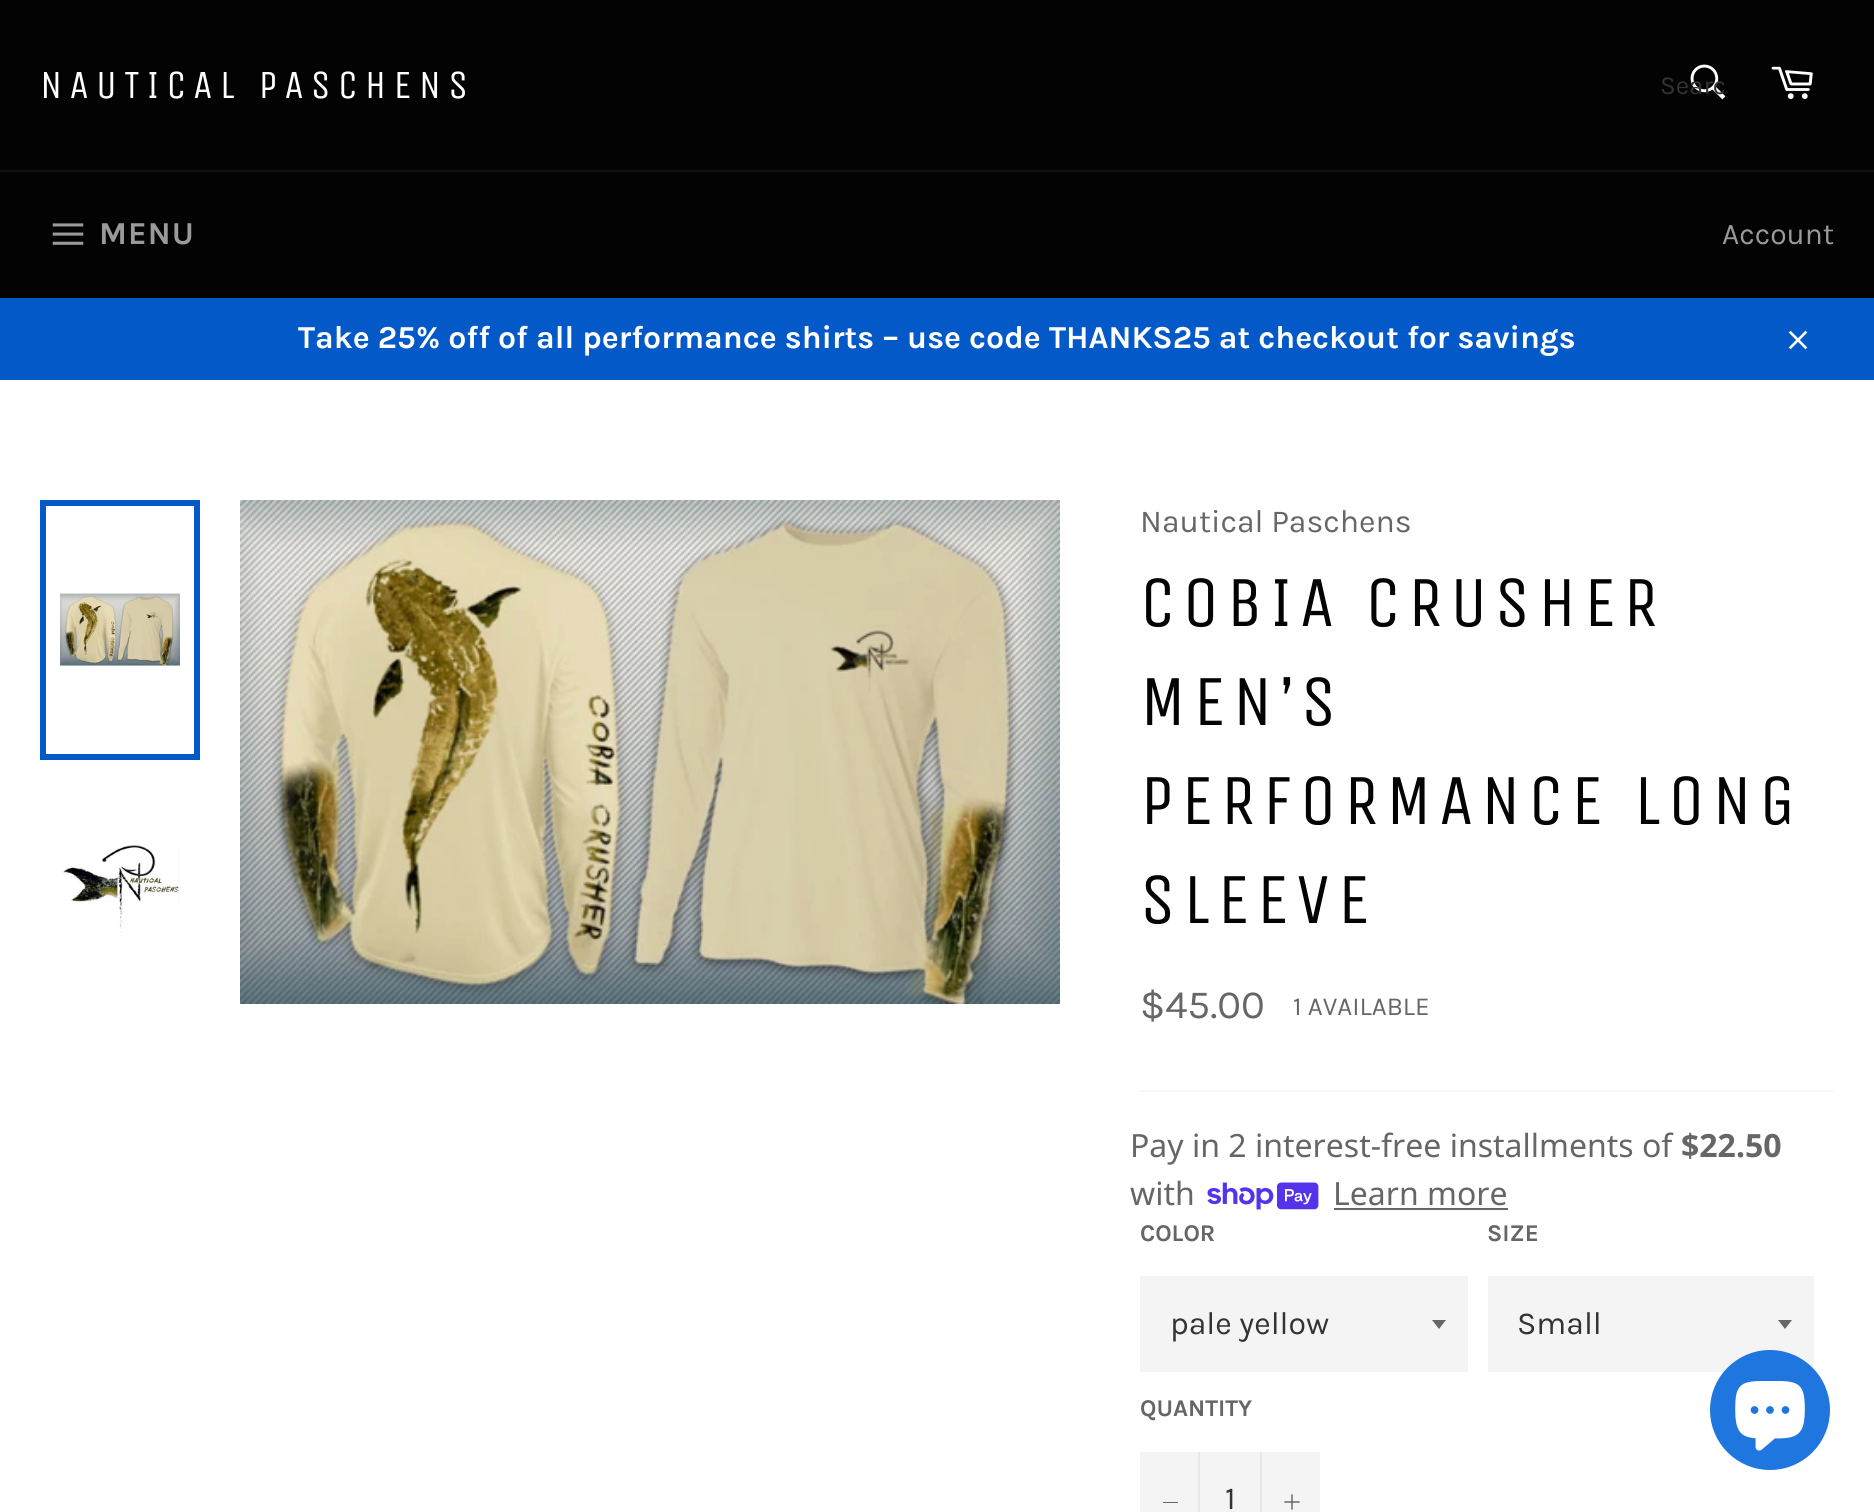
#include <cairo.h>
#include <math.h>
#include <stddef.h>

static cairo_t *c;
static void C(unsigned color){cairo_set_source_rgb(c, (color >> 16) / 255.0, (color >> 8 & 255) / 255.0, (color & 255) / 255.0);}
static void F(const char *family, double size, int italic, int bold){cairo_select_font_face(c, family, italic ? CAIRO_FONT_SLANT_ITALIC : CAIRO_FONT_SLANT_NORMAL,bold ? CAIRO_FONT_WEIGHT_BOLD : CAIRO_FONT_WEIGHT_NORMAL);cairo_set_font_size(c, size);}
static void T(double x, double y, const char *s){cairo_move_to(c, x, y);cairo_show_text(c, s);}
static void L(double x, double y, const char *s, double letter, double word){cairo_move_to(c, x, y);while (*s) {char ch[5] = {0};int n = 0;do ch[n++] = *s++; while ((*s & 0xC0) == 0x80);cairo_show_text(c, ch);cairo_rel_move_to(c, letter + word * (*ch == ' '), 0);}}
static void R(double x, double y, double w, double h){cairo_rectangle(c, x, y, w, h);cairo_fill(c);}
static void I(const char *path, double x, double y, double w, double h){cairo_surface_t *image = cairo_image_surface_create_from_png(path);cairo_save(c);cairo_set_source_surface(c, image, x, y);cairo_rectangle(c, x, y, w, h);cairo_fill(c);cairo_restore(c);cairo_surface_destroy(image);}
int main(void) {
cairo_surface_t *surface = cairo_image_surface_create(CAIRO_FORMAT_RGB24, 1874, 1512);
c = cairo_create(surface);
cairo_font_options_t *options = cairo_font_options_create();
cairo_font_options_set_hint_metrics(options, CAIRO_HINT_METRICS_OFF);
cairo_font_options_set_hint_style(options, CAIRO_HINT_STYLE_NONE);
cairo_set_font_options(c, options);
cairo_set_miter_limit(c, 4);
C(0x030303);
cairo_paint(c);
F("Unica One",40,0,0);
C(0xffffff);
L(40,98,"NAUTICAL PASCHENS",7.25,0);
I("1.png",1690,64,36,36);
cairo_save(c);
cairo_rectangle(c,1660,70,64,30);
cairo_clip(c);
F("Karla",26,0,0);
C(0x333333);
T(1660,94,"Searc");
cairo_restore(c);
I("2.png",1771,66,42,33);
C(0x101010);
R(0,170,1874,2);
I("3.png",52,223,32,22);
F("Karla",32,0,1);
C(0x9a9a9a);
L(99,244,"MENU",1,0);
F("Karla",30,0,0);
T(1722,244,"Account");
C(0x0459c9);
R(0,298,1874,82);
F("Karla",32,0,1);
C(0xffffff);
T(298,348,"Take 25% off of all performance shirts – use code THANKS25 at checkout for savings");
I("4.png",1788,330,20,20);
R(0,380,1874,1132);
I("5.png",60,593,120,73);
cairo_rectangle(c,43,503,154,254);
C(0x0459c9);
cairo_set_line_width(c,6);
cairo_stroke(c);
I("6.png",63,843,117,90);
I("7.png",240,500,820,504);
F("Karla",32,0,0);
C(0x666666);
T(1140,532,"Nautical Paschens");
F("Unica One",72,0,0);
C(0x030303);
L(1140,626,"COBIA CRUSHER",7.25,0);
L(1140,725,"MEN’S",7.25,0);
L(1140,824,"PERFORMANCE LONG",7.25,0);
L(1140,923,"SLEEVE",7.25,0);
F("Karla",40,0,0);
C(0x666666);
T(1140,1018,"$45.00");
F("Karla",26,0,0);
T(1293,1015,"1 AVAILABLE");
C(0xf7f7f7);
R(1140,1090,694,2);
F("Noto Sans",32,0,0);
C(0x666666);
T(1130,1157,"Pay in 2 interest-free installments of");
F("Noto Sans",32,0,1);
T(1681,1157,"$22.50");
F("Noto Sans",32,0,0);
T(1130,1205,"with");
I("8.png",1207,1182,112,28);
T(1333,1205,"Learn more");
R(1334,1208,174,2);
F("Karla",24,0,1);
T(1140,1241,"COLOR");
C(0xf4f4f4);
R(1140,1276,328,96);
C(0x666666);
cairo_new_path(c);
cairo_move_to(c,1432,1320);
cairo_line_to(c,1439,1329);
cairo_line_to(c,1446,1320);
cairo_close_path(c);
cairo_fill(c);
F("Karla",32,0,0);
C(0x333333);
T(1170,1334,"pale yellow");
F("Karla",24,0,1);
C(0x666666);
T(1487,1241,"SIZE");
C(0xf4f4f4);
R(1488,1276,326,96);
C(0x666666);
cairo_new_path(c);
cairo_move_to(c,1778,1320);
cairo_line_to(c,1785,1329);
cairo_line_to(c,1792,1320);
cairo_close_path(c);
cairo_fill(c);
F("Karla",32,0,0);
C(0x333333);
T(1517,1334,"Small");
F("Karla",24,0,1);
C(0x666666);
T(1140,1416,"QUANTITY");
C(0xf4f4f4);
R(1140,1452,180,60);
C(0xe7e7e7);
R(1198,1452,2,60);
C(0x666666);
R(1163,1502,15,1);
F("Karla",32,0,0);
C(0x333333);
T(1225,1509,"1");
C(0xe7e7e7);
R(1260,1452,2,60);
I("9.png",1284,1494,16,16);
C(0x2076df);
cairo_arc(c,1770,1410,60,0,2 * M_PI);
cairo_fill(c);
I("10.png",1735,1381,70,70);
cairo_surface_write_to_png(surface, "o.png");
cairo_font_options_destroy(options);
cairo_destroy(c);
cairo_surface_destroy(surface);
return 0;
}
